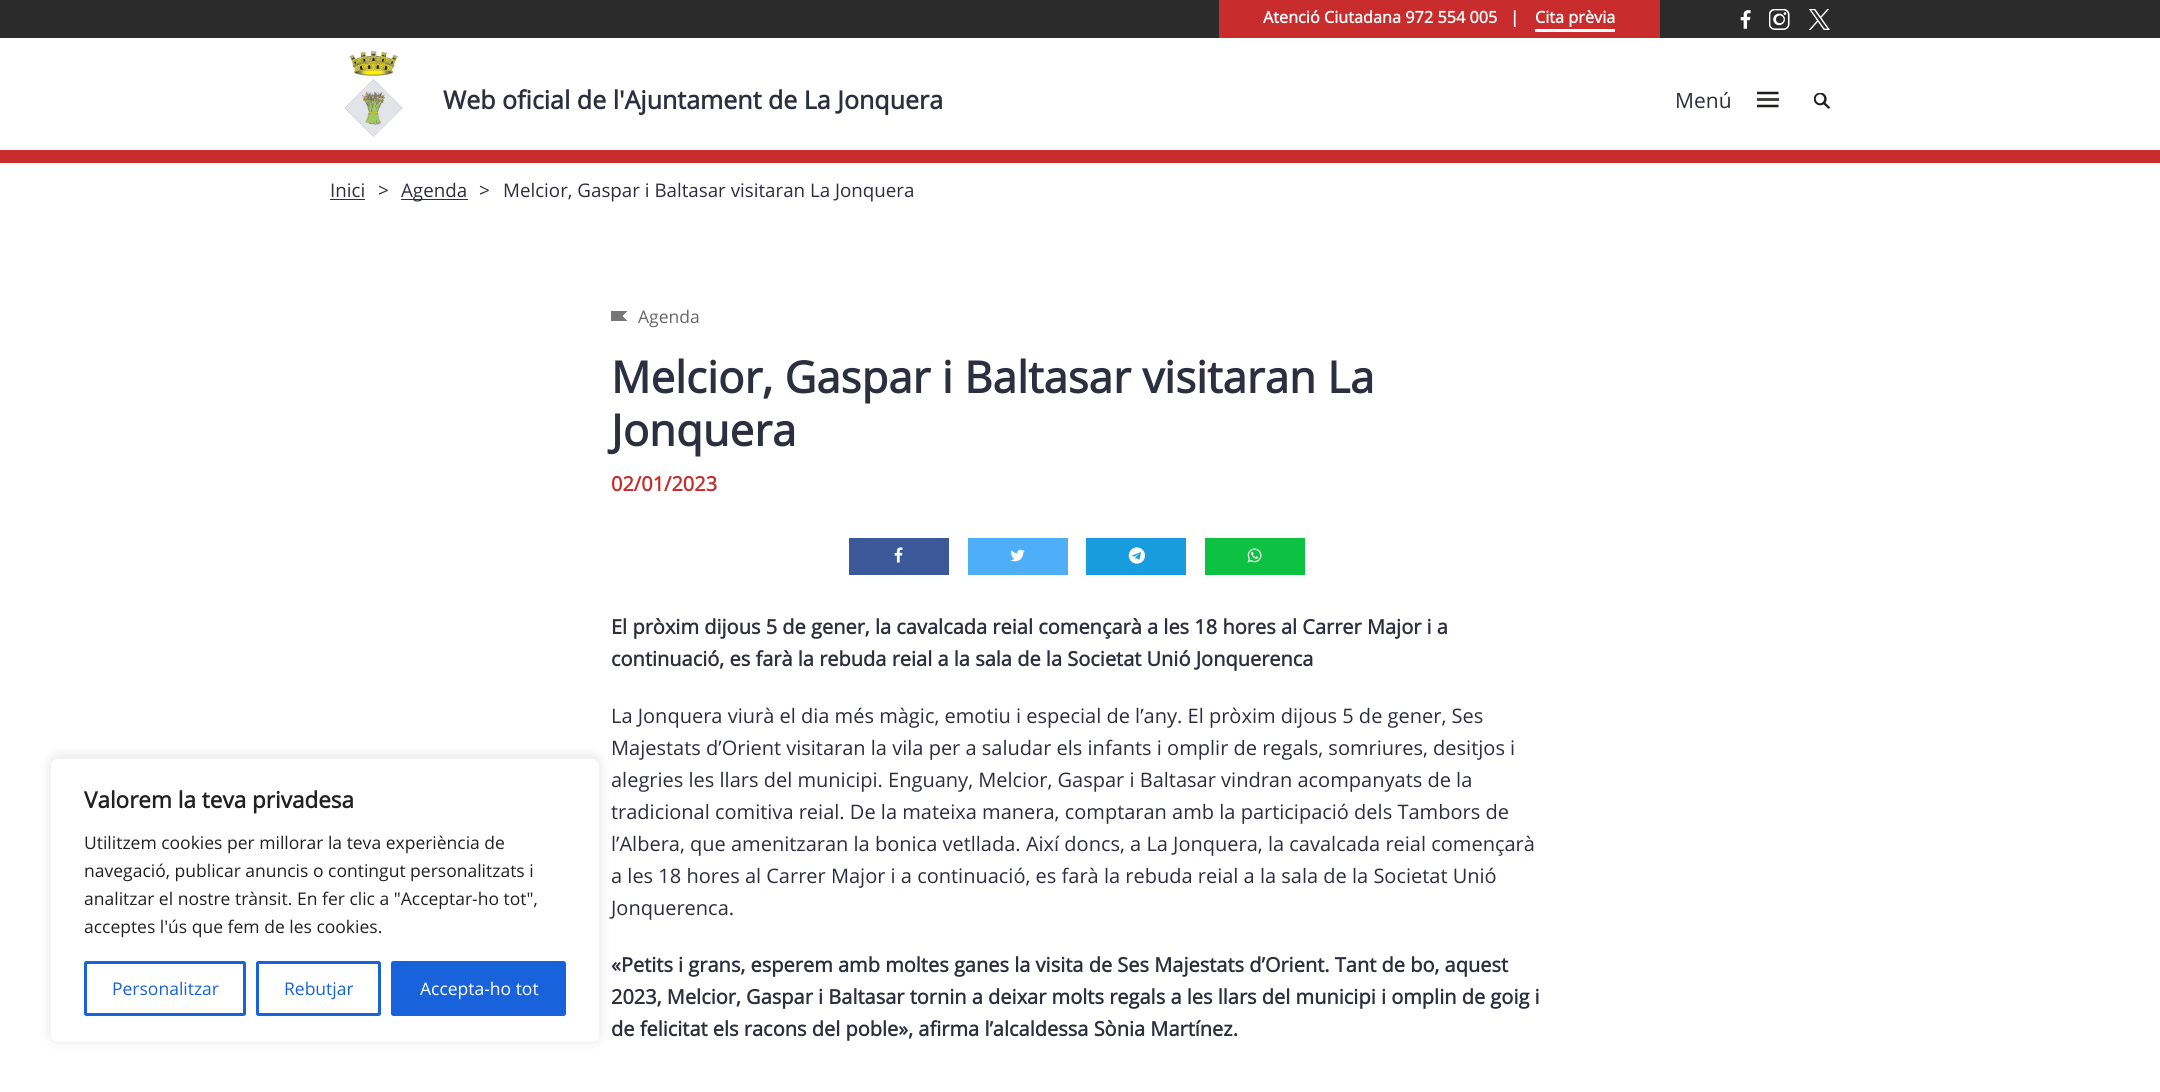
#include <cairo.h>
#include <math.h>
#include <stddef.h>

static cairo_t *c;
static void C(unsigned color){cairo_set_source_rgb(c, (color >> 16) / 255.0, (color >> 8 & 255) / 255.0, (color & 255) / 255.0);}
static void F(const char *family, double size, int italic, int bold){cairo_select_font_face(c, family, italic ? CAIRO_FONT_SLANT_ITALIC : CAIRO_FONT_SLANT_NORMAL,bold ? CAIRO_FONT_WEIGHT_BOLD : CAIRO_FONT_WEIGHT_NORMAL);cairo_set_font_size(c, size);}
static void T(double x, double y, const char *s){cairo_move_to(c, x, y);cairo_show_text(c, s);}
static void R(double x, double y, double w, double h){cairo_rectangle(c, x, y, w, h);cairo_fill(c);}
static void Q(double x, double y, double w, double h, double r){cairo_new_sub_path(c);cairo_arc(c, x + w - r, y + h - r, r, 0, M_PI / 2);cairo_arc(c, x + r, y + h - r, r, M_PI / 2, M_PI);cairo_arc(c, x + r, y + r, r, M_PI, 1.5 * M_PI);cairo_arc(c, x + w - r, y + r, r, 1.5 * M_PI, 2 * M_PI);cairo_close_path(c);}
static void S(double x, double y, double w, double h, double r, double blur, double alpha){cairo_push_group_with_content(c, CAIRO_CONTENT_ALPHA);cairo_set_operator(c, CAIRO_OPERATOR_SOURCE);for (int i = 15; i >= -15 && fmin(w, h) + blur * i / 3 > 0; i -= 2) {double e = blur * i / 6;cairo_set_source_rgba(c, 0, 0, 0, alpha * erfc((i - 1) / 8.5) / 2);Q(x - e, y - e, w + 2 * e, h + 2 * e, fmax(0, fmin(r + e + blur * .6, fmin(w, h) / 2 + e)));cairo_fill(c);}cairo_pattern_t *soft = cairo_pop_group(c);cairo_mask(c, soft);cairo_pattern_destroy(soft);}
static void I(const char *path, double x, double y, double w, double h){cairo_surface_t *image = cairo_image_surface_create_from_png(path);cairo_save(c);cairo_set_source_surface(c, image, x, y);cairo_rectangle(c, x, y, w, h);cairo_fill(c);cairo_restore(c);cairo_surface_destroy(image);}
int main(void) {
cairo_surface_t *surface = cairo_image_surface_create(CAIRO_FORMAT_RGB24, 2160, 1092);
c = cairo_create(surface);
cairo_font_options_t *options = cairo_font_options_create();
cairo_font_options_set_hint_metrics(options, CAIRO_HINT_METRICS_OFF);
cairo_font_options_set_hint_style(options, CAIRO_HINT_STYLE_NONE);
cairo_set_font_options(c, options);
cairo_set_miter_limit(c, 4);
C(0xffffff);
cairo_paint(c);
C(0xc92c2c);
R(0,150,2160,13);
C(0x2b2b2b);
R(0,0,2160,38);
C(0xc92c2c);
R(1219,0,441,38);
F("Open Sans",16.25,0,1);
C(0xffffff);
T(1263,23,"Atenció Ciutadana 972 554 005");
T(1510,23,"|");
T(1535,23,"Cita prèvia");
R(1535,29,80,3);
I("1.png",1740,10,11,19);
I("2.png",1769,9,21,21);
I("3.png",1809,9,21,21);
I("4.png",344,50,59,87);
F("Open Sans",25,0,1);
C(0x2d2e40);
T(443,109,"Web oficial de l'Ajuntament de La Jonquera");
F("Open Sans",21,0,0);
T(1675,108,"Menú");
cairo_new_path(c);
cairo_move_to(c,1757,93);
cairo_line_to(c,1778.5,93);
C(0x1d1d1b);
cairo_set_line_width(c,2.5);
cairo_stroke(c);
C(0x434341);
R(1757,98,22,3);
cairo_new_path(c);
cairo_move_to(c,1757,106);
cairo_line_to(c,1778.5,106);
C(0x1d1d1b);
cairo_stroke(c);
I("5.png",1814,93,16,16);
C(0xacabab);
S(50,756,550,285,8,6,.3);
C(0xffffff);
Q(50.5,758.5,549,284,7.5);
cairo_fill_preserve(c);
C(0xf4f4f4);
cairo_set_line_width(c,1);
cairo_stroke(c);
F("Open Sans",22.5,0,1);
C(0x212121);
T(84,808,"Valorem la teva privadesa");
F("Open Sans",17.5,0,0);
T(84,849,"Utilitzem cookies per millorar la teva experiència de");
T(84,877,"navegació, publicar anuncis o contingut personalitzats i");
T(84,905,"analitzar el nostre trànsit. En fer clic a \"Acceptar-ho tot\",");
T(84,933,"acceptes l'ús que fem de les cookies.");
Q(85.5,962.5,159,52,1);
C(0x1863dc);
cairo_set_line_width(c,3);
cairo_stroke(c);
T(112,995,"Personalitzar");
Q(257.5,962.5,122,52,1);
cairo_stroke(c);
T(284,995,"Rebutjar");
Q(392.5,962.5,172,52,1);
cairo_fill_preserve(c);
cairo_stroke(c);
C(0xffffff);
T(420,995,"Accepta-ho tot");
F("Open Sans",18.75,0,0);
C(0x2d2e40);
T(330,197,"Inici");
R(330,199,35,1);
F("Open Sans",19,0,0);
T(378,197,">");
R(401,199,67,1);
F("Open Sans",18.75,0,0);
T(401,197,"Agenda");
F("Open Sans",19,0,0);
T(479,197,">");
F("Open Sans",18.75,0,0);
T(503,197,"Melcior, Gaspar i Baltasar visitaran La Jonquera");
C(0x777777);
cairo_set_fill_rule(c,CAIRO_FILL_RULE_EVEN_ODD);
cairo_new_path(c);
cairo_move_to(c,611,321);
cairo_line_to(c,611,311);
cairo_line_to(c,627.5,311);
cairo_line_to(c,622.5,316);
cairo_line_to(c,627.5,321);
cairo_close_path(c);
cairo_fill(c);
F("Open Sans",17.5,0,0);
C(0x676767);
T(638,323,"Agenda");
F("Open Sans",43.75,0,1);
C(0x2d2e40);
T(611,393,"Melcior, Gaspar i Baltasar visitaran La");
T(611,446,"Jonquera");
F("Open Sans",20,0,1);
C(0xc92c2c);
T(611,491,"02/01/2023");
C(0x3b5998);
R(849,538,100,37);
I("6.png",894,547,9,16);
C(0x4eaef8);
R(968,538,100,37);
I("7.png",1010,549,15,13);
C(0x179cde);
R(1086,538,100,37);
I("8.png",1128,547,17,17);
C(0x0dc143);
R(1205,538,100,37);
I("9.png",1247,548,15,15);
C(0x2d2e40);
T(611,634,"El pròxim dijous 5 de gener, la cavalcada reial començarà a les 18 hores al Carrer Major i a");
T(611,666,"continuació, es farà la rebuda reial a la sala de la Societat Unió Jonquerenca");
F("Open Sans",20,0,0);
T(611,723,"La Jonquera viurà el dia més màgic, emotiu i especial de l’any. El pròxim dijous 5 de gener, Ses");
T(611,755,"Majestats d’Orient visitaran la vila per a saludar els infants i omplir de regals, somriures, desitjos i");
T(611,787,"alegries les llars del municipi. Enguany, Melcior, Gaspar i Baltasar vindran acompanyats de la");
T(611,819,"tradicional comitiva reial. De la mateixa manera, comptaran amb la participació dels Tambors de");
T(611,851,"l’Albera, que amenitzaran la bonica vetllada. Així doncs, a La Jonquera, la cavalcada reial començarà");
T(611,883,"a les 18 hores al Carrer Major i a continuació, es farà la rebuda reial a la sala de la Societat Unió");
T(611,915,"Jonquerenca.");
F("Open Sans",20,0,1);
T(611,972,"«Petits i grans, esperem amb moltes ganes la visita de Ses Majestats d’Orient. Tant de bo, aquest");
T(611,1004,"2023, Melcior, Gaspar i Baltasar tornin a deixar molts regals a les llars del municipi i omplin de goig i");
T(611,1036,"de felicitat els racons del poble», afirma l’alcaldessa Sònia Martínez.");
cairo_surface_write_to_png(surface, "o.png");
cairo_font_options_destroy(options);
cairo_destroy(c);
cairo_surface_destroy(surface);
return 0;
}
